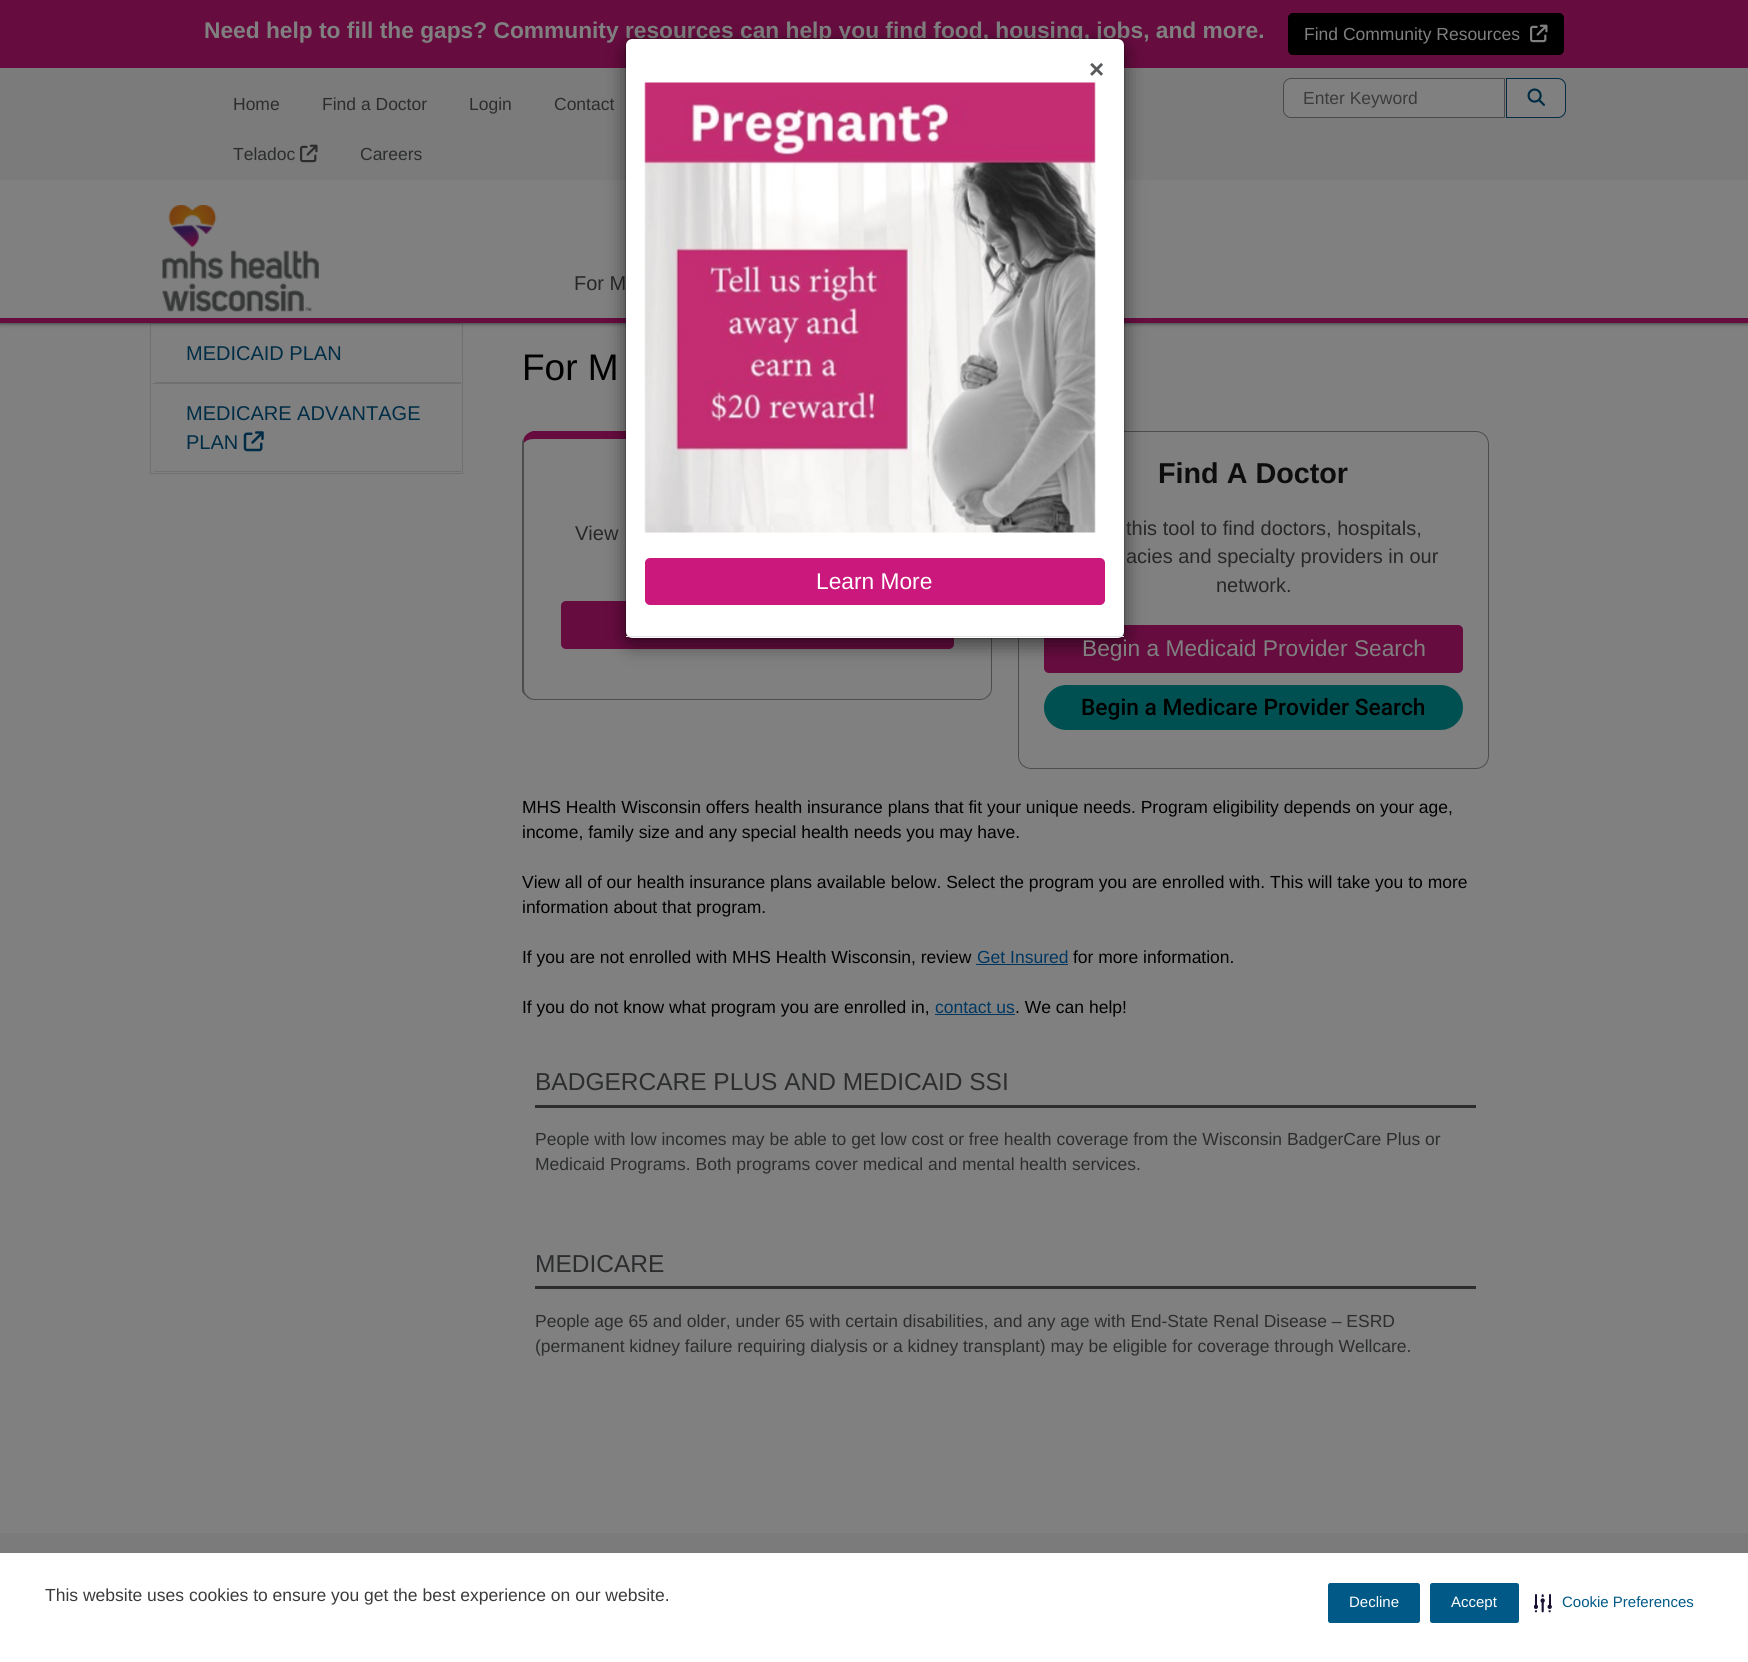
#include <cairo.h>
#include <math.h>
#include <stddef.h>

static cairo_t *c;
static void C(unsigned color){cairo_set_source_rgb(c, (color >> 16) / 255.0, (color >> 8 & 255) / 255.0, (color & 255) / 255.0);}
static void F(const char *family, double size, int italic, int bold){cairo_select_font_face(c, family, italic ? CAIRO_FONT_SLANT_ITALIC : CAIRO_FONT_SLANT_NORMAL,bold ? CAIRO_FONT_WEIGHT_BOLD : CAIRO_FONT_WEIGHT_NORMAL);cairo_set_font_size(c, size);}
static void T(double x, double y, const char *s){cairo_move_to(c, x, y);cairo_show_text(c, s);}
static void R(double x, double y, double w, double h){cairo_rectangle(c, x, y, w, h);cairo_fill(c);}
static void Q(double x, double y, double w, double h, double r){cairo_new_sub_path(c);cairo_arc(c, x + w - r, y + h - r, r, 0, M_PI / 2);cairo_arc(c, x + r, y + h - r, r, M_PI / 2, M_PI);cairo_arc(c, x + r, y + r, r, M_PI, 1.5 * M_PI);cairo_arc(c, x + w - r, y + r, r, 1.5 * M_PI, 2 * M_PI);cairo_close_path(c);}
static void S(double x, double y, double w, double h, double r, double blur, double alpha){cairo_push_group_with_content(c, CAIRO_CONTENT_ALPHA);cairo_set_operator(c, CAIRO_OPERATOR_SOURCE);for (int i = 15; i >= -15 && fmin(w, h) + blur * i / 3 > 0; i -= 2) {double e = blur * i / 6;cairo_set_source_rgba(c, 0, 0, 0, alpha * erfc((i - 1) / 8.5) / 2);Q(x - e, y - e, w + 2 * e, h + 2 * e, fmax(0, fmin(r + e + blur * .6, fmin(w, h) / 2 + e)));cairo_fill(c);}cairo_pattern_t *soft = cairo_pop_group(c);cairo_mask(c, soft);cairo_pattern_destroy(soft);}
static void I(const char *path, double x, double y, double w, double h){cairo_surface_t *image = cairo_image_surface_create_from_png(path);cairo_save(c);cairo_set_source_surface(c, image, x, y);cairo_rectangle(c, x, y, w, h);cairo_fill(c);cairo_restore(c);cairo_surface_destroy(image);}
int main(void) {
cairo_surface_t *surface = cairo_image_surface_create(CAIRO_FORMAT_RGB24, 1748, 1662);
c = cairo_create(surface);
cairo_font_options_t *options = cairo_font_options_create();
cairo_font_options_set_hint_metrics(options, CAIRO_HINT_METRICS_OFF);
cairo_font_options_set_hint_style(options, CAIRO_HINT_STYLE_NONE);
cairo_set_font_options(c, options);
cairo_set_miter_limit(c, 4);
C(0x808080);
cairo_paint(c);
cairo_rectangle(c,150.5,323.5,312,150);
C(0x707070);
cairo_set_line_width(c,1);
cairo_stroke(c);
cairo_new_path(c);
cairo_move_to(c,461,384);
cairo_line_to(c,151,384);
cairo_line_to(c,156,382);
cairo_line_to(c,461,382);
cairo_close_path(c);
cairo_fill(c);
C(0x808080);
cairo_new_path(c);
cairo_move_to(c,151,384);
cairo_line_to(c,151,324);
cairo_line_to(c,156,324);
cairo_line_to(c,156,382);
cairo_close_path(c);
cairo_fill(c);
C(0x2c2d2e);
S(0,0,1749,323,0,2.5,1);
C(0x808080);
R(0,180,1748,138);
C(0x660c3f);
R(0,318,1748,5);
R(0,0,1748,68);
F("Liberation Sans",22.75,0,1);
C(0x808080);
T(204,38,"Need help to fill the gaps? Community resources can help you find food, housing, jobs, and more.");
C(0x000000);
Q(1288,13,276,42,5);
cairo_fill(c);
F("Liberation Sans",17.5,0,0);
C(0x808080);
T(1304,40,"Find Community Resources");
I("1.png",1530,24,18,19);
C(0x7b7b7b);
R(0,68,1748,112);
C(0x2c2d2e);
T(233,110,"Home");
T(322,110,"Find a Doctor");
T(469,110,"Login");
T(554,110,"Contact");
T(233,160,"Teladoc");
I("2.png",300,144,18,19);
T(360,160,"Careers");
C(0x808080);
cairo_new_path(c);
cairo_move_to(c,1291,78.5);
cairo_line_to(c,1504.5,78.5);
cairo_line_to(c,1504.5,117.5);
cairo_line_to(c,1291,117.5);
cairo_curve_to(c,1287,117.5,1283.5,114,1283.5,110);
cairo_line_to(c,1283.5,86);
cairo_curve_to(c,1283.5,82,1287,78.5,1291,78.5);
cairo_close_path(c);
cairo_fill_preserve(c);
C(0x4a4a4a);
cairo_stroke(c);
C(0x3b3b3b);
T(1303,104,"Enter Keyword");
C(0x808080);
cairo_new_path(c);
cairo_move_to(c,1506.5,78.5);
cairo_line_to(c,1558,78.5);
cairo_curve_to(c,1562,78.5,1565.5,82,1565.5,86);
cairo_line_to(c,1565.5,110);
cairo_curve_to(c,1565.5,114,1562,117.5,1558,117.5);
cairo_line_to(c,1506.5,117.5);
cairo_close_path(c);
cairo_fill_preserve(c);
C(0x002d43);
cairo_stroke(c);
I("3.png",1527,88,18,18);
I("4.png",162,205,157,107);
F("Liberation Sans",20,0,0);
C(0x272727);
T(574,290,"For M");
C(0x002d46);
T(186,360,"MEDICAID PLAN");
C(0x707070);
cairo_new_path(c);
cairo_move_to(c,461,472);
cairo_line_to(c,151,472);
cairo_line_to(c,156,471);
cairo_line_to(c,461,471);
cairo_close_path(c);
cairo_fill(c);
C(0x808080);
cairo_new_path(c);
cairo_move_to(c,151,472);
cairo_line_to(c,151,384);
cairo_line_to(c,156,384);
cairo_line_to(c,156,471);
cairo_close_path(c);
cairo_fill(c);
C(0x002d46);
T(186,420,"MEDICARE ADVANTAGE");
T(186,449,"PLAN");
I("5.png",243,431,21,21);
F("Liberation Sans",37,0,0);
C(0x000000);
T(522,380,"For M");
C(0x660c3f);
cairo_new_path(c);
cairo_move_to(c,535,439);
cairo_curve_to(c,530,439,526,440,524,443);
cairo_line_to(c,524,438);
cairo_curve_to(c,525,435,529,432,533,431);
cairo_line_to(c,982,431);
cairo_curve_to(c,987,432,990,435,991,439);
cairo_line_to(c,991,443);
cairo_curve_to(c,989,440,985,439,980,439);
cairo_close_path(c);
cairo_fill(c);
C(0x4d4d4d);
cairo_new_path(c);
cairo_move_to(c,991,439);
cairo_line_to(c,992,444);
cairo_line_to(c,992,688);
cairo_curve_to(c,992,691,991,694,989,696);
cairo_line_to(c,988,695);
cairo_curve_to(c,990,694,991,691,991,688);
cairo_line_to(c,991,444);
cairo_line_to(c,991,443);
cairo_close_path(c);
cairo_fill(c);
C(0x660c3f);
Q(561,601,393,48,5);
cairo_fill(c);
Q(1018.5,431.5,470,337,12.5);
C(0x4d4d4d);
cairo_stroke(c);
C(0x660c3f);
Q(1044,625,419,48,5);
cairo_fill(c);
C(0x000000);
S(625,44,500,601,8,9.5,.5);
C(0xffffff);
Q(626,39,498,599,6);
cairo_fill(c);
Q(625.5,38.5,499,600,7.5);
cairo_set_source_rgba(c,0,0,0,0.2);
cairo_stroke(c);
C(0xe5e5e5);
R(626,636,498,1);
F("Liberation Sans",26,0,1);
C(0x58595b);
T(1089,78,"×");
I("6.png",644,82,452,451);
C(0xcb187d);
Q(645,558,460,47,5);
cairo_fill(c);
F("Liberation Sans",22.75,0,0);
C(0xffffff);
T(816,589,"Learn More");
C(0x4d4d4d);
cairo_new_path(c);
cairo_move_to(c,535,700);
cairo_line_to(c,980,700);
cairo_curve_to(c,984,700,987,698,989,696);
cairo_line_to(c,988,695);
cairo_curve_to(c,986,698,983,699,980,699);
cairo_line_to(c,535,699);
cairo_curve_to(c,532,699,529,698,527,695);
cairo_line_to(c,526,696);
cairo_curve_to(c,528,699,532,700,535,700);
cairo_close_path(c);
cairo_fill(c);
cairo_new_path(c);
cairo_move_to(c,522,441);
cairo_line_to(c,524,438);
cairo_line_to(c,524,443);
cairo_line_to(c,524,444);
cairo_line_to(c,524,688);
cairo_curve_to(c,524,691,525,694,527,695);
cairo_line_to(c,526,696);
cairo_curve_to(c,524,695,523,693,522,691);
cairo_close_path(c);
cairo_fill(c);
F("Liberation Sans",20,0,0);
C(0x272727);
T(575,540,"View");
F("Liberation Sans",28.75,0,1);
C(0x0d0d0d);
T(1158,483,"Find A Doctor");
F("Liberation Sans",20,0,0);
C(0x272727);
T(1126,535,"this tool to find doctors, hospitals,");
T(1126,563,"acies and specialty providers in our");
T(1216,592,"network.");
F("Liberation Sans",22.75,0,0);
C(0x808080);
T(1082,656,"Begin a Medicaid Provider Search");
C(0x005052);
Q(1044,685,419,45,22.5);
cairo_fill(c);
F("Roboto Medium",22.75,0,0);
C(0x000000);
T(1081,715,"Begin a Medicare Provider Search");
F("Liberation Sans",17.5,0,0);
T(522,813,"MHS Health Wisconsin offers health insurance plans that fit your unique needs. Program eligibility depends on your age,");
T(522,838,"income, family size and any special health needs you may have.");
T(522,888,"View all of our health insurance plans available below. Select the program you are enrolled with. This will take you to more");
T(522,913,"information about that program.");
T(522,963,"If you are not enrolled with MHS Health Wisconsin, review");
C(0x003761);
T(977,963,"Get Insured");
R(976,964,92,1);
C(0x000000);
T(1073,963,"for more information.");
T(522,1013,"If you do not know what program you are enrolled in,");
C(0x003761);
T(935,1013,"contact us");
R(935,1014,80,1);
C(0x000000);
T(1015,1013,". We can help!");
C(0x2c2d2e);
R(535,1105,941,3);
F("Liberation Sans",24.5,0,0);
T(535,1090,"BADGERCARE PLUS AND MEDICAID SSI");
F("Liberation Sans",17.5,0,0);
T(535,1145,"People with low incomes may be able to get low cost or free health coverage from the Wisconsin BadgerCare Plus or");
T(535,1170,"Medicaid Programs. Both programs cover medical and mental health services.");
R(535,1286,941,3);
F("Liberation Sans",24.5,0,0);
T(535,1272,"MEDICARE");
F("Liberation Sans",17.5,0,0);
T(535,1327,"People age 65 and older, under 65 with certain disabilities, and any age with End-State Renal Disease – ESRD");
T(535,1352,"(permanent kidney failure requiring dialysis or a kidney transplant) may be eligible for coverage through Wellcare.");
C(0x7b7b7b);
R(0,1533,1748,20);
C(0xffffff);
R(0,1553,1748,109);
C(0x3b3b3b);
T(45,1601,"This website uses cookies to ensure you get the best experience on our website.");
C(0x005986);
Q(1328.5,1583.5,91,39,2);
cairo_fill_preserve(c);
cairo_stroke(c);
F("Liberation Sans",15,0,0);
C(0xffffff);
T(1349,1607,"Decline");
C(0x005986);
Q(1430.5,1583.5,88,39,2);
cairo_fill_preserve(c);
cairo_stroke(c);
C(0xffffff);
T(1451,1607,"Accept");
I("7.png",1534,1594,18,19);
C(0x005986);
T(1562,1607,"Cookie Preferences");
cairo_surface_write_to_png(surface, "o.png");
cairo_font_options_destroy(options);
cairo_destroy(c);
cairo_surface_destroy(surface);
return 0;
}
